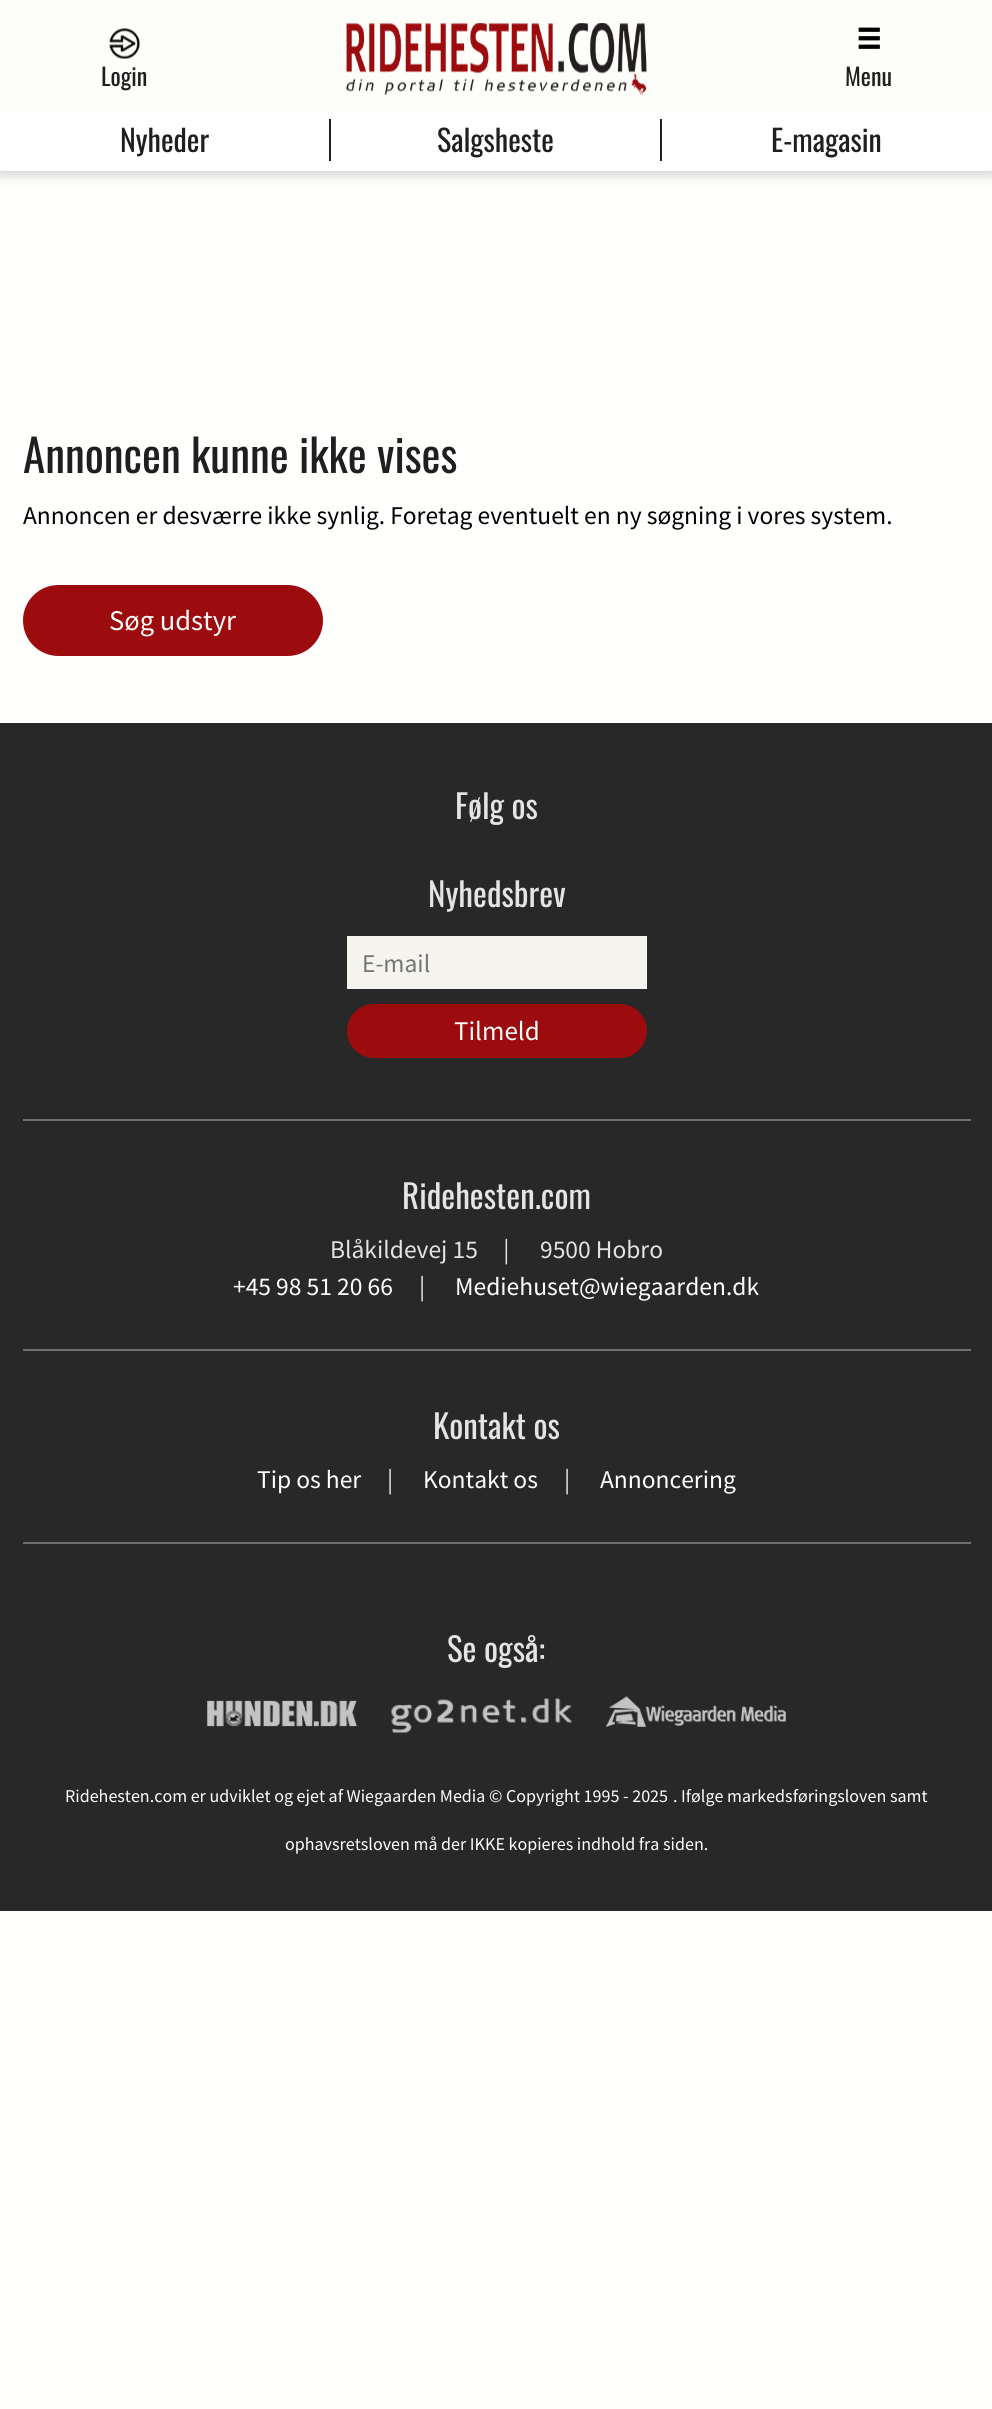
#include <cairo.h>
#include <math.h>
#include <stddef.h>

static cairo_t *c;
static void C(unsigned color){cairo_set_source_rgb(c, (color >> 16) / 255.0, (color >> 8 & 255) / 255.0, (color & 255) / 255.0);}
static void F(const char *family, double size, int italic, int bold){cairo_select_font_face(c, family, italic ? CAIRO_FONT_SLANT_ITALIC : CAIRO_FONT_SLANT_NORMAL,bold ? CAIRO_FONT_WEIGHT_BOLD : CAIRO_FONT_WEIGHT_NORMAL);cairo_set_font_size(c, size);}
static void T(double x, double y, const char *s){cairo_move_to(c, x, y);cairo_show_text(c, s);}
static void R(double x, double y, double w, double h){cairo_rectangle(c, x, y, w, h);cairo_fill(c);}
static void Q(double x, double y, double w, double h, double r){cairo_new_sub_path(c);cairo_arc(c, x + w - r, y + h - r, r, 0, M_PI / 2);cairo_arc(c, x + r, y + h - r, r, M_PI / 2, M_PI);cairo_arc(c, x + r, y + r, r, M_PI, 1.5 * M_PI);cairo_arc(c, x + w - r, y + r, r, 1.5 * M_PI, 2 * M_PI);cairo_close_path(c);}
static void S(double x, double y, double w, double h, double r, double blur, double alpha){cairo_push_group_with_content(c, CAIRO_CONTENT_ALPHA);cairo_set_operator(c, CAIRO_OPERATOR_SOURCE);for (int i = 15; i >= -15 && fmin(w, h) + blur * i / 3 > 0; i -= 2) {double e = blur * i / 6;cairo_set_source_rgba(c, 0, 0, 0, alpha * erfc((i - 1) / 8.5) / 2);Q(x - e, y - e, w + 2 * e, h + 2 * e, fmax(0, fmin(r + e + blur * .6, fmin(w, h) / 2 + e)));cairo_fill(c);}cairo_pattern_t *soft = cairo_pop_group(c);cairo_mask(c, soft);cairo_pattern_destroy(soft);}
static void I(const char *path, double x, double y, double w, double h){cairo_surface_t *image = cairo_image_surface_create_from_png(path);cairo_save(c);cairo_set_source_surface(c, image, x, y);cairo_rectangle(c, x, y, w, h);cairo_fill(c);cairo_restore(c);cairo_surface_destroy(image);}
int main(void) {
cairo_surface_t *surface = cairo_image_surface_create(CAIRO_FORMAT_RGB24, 992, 2409);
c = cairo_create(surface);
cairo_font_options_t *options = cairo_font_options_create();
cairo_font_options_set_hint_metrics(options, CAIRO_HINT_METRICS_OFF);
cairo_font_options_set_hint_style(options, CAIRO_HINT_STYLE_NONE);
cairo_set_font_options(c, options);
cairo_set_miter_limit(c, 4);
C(0xfffffe);
cairo_paint(c);
C(0xb4b4b4);
S(0,0,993,171,0,7.5,1);
C(0xfdfdfa);
R(0,0,992,111);
I("1.png",109,28,31,31);
F("Oswald",24,0,0);
C(0x1f1f1f);
T(101,86,"Login");
I("2.png",346,23,301,72);
I("3.png",858,27,22,22);
T(845,86,"Menu");
C(0xffffff);
R(0,111,992,60);
C(0x1f1f1f);
R(329,119,2,42);
F("Oswald",30,0,0);
T(120,152,"Nyheder");
R(660,119,2,42);
T(437,152,"Salgsheste");
T(771,152,"E-magasin");
F("Oswald",45,0,0);
T(23,473,"Annoncen kunne ikke vises");
F("Source Sans Pro",25.5,0,0);
C(0x000000);
T(23,524,"Annoncen er desværre ikke synlig. Foretag eventuelt en ny søgning i vores system.");
C(0x9c0b0e);
Q(23,585,300,71,35.5);
cairo_fill(c);
F("Source Sans Pro",28.5,0,0);
C(0xffffff);
T(109,630,"Søg udstyr");
C(0x282828);
R(0,723,992,1188);
C(0x706f6d);
R(23,1119,948,2);
F("Oswald",33,0,0);
C(0xe4e4e4);
T(455,819,"Følg os");
T(428,907,"Nyhedsbrev");
C(0xf5f4ee);
R(347,936,300,53);
F("Source Sans Pro",25.5,0,0);
C(0x757575);
T(362,972,"E-mail");
C(0x9c0b0e);
Q(347,1004,300,54,27);
cairo_fill(c);
F("Source Sans Pro",27,0,0);
C(0xffffff);
T(454,1040,"Tilmeld");
C(0x706f6d);
R(23,1349,948,2);
F("Oswald",33,0,0);
C(0xe4e4e4);
T(402,1209,"Ridehesten.com");
F("Source Sans Pro",25.5,0,0);
T(330,1258,"Blåkildevej 15     |");
T(540,1258,"9500 Hobro");
C(0xffffff);
T(233,1295,"+45 98 51 20 66");
C(0xe4e4e4);
T(419,1295,"|");
C(0xffffff);
T(455,1295,"Mediehuset@wiegaarden.dk");
C(0x706f6d);
R(23,1542,948,2);
F("Oswald",33,0,0);
C(0xe4e4e4);
T(433,1439,"Kontakt os");
F("Source Sans Pro",25.5,0,0);
C(0xffffff);
T(257,1488,"Tip os her");
C(0xe4e4e4);
T(387,1488,"|");
C(0xffffff);
T(423,1488,"Kontakt os");
C(0xe4e4e4);
T(564,1488,"|");
C(0xffffff);
T(600,1488,"Annoncering");
F("Oswald",33,0,0);
C(0xe4e4e4);
T(447,1662,"Se også:");
I("4.png",207,1700,150,27);
I("5.png",391,1698,181,35);
I("6.png",606,1696,180,31);
F("Source Sans Pro",18,0,0);
C(0xffffff);
T(65,1802,"Ridehesten.com er udviklet og ejet af Wiegaarden Media © Copyright 1995 - 2025");
T(673,1802,". Ifølge markedsføringsloven samt");
T(285,1850,"ophavsretsloven må der IKKE kopieres indhold fra siden.");
cairo_surface_write_to_png(surface, "o.png");
cairo_font_options_destroy(options);
cairo_destroy(c);
cairo_surface_destroy(surface);
return 0;
}
